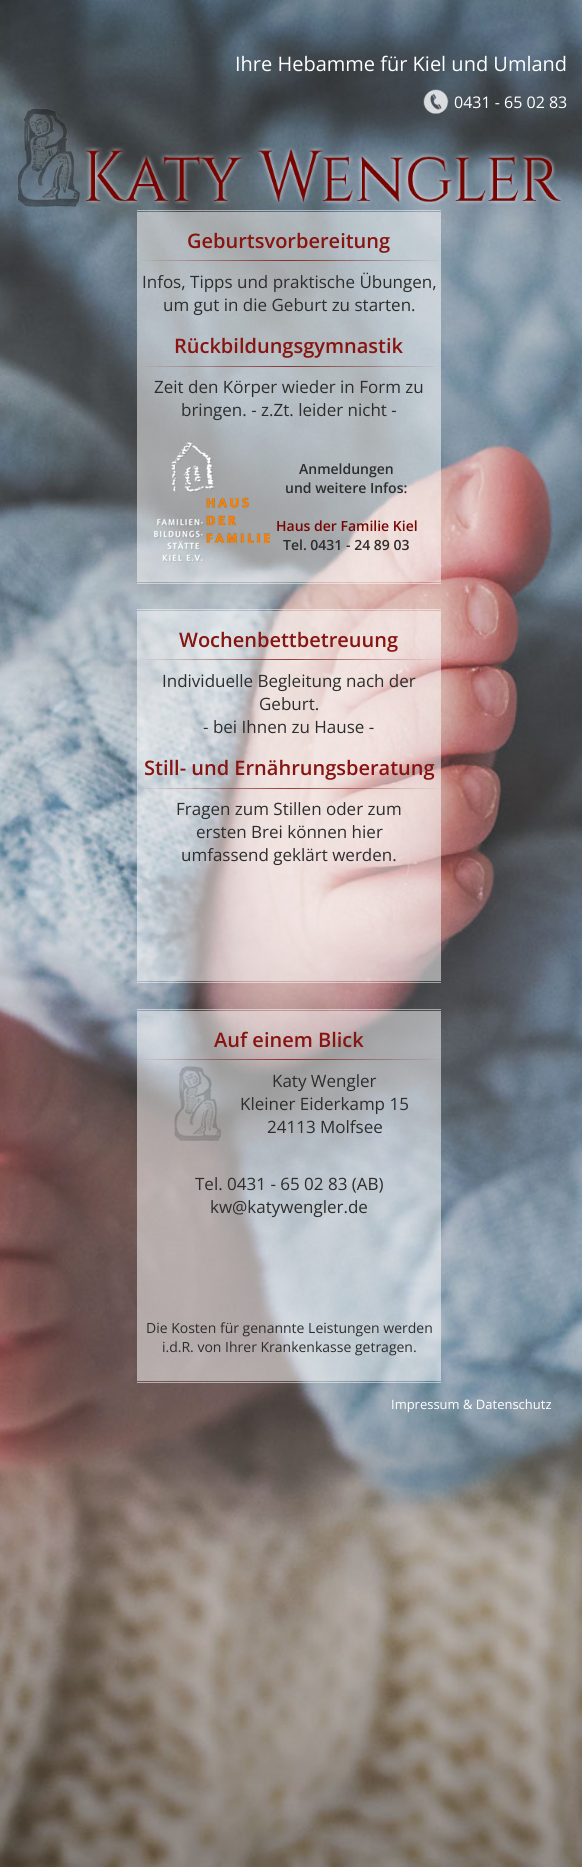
#include <cairo.h>
#include <math.h>
#include <stddef.h>

static cairo_t *c;
static void C(unsigned color){cairo_set_source_rgb(c, (color >> 16) / 255.0, (color >> 8 & 255) / 255.0, (color & 255) / 255.0);}
static void F(const char *family, double size, int italic, int bold){cairo_select_font_face(c, family, italic ? CAIRO_FONT_SLANT_ITALIC : CAIRO_FONT_SLANT_NORMAL,bold ? CAIRO_FONT_WEIGHT_BOLD : CAIRO_FONT_WEIGHT_NORMAL);cairo_set_font_size(c, size);}
static void T(double x, double y, const char *s){cairo_move_to(c, x, y);cairo_show_text(c, s);}
static void R(double x, double y, double w, double h){cairo_rectangle(c, x, y, w, h);cairo_fill(c);}
static void I(const char *path, double x, double y, double w, double h){cairo_surface_t *image = cairo_image_surface_create_from_png(path);cairo_save(c);cairo_set_source_surface(c, image, x, y);cairo_rectangle(c, x, y, w, h);cairo_fill(c);cairo_restore(c);cairo_surface_destroy(image);}
int main(void) {
cairo_surface_t *surface = cairo_image_surface_create(CAIRO_FORMAT_RGB24, 582, 1867);
c = cairo_create(surface);
cairo_font_options_t *options = cairo_font_options_create();
cairo_font_options_set_hint_metrics(options, CAIRO_HINT_METRICS_OFF);
cairo_font_options_set_hint_style(options, CAIRO_HINT_STYLE_NONE);
cairo_set_font_options(c, options);
cairo_set_miter_limit(c, 4);
cairo_pattern_t *gradient;
C(0xffffff);
cairo_paint(c);
I("1.png",0,0,582,1867);
F("Open Sans",20,0,0);
C(0xffffff);
T(235,71,"Ihre Hebamme für Kiel und Umland");
I("2.png",423,89,26,25);
F("Open Sans",16,0,0);
T(454,108,"0431 - 65 02 83");
I("3.png",17,108,545,99);
I("4.png",137,210,304,374);
F("Open Sans SemiBold",20,0,0);
C(0x871410);
T(187,248,"Geburtsvorbereitung");
gradient = cairo_pattern_create_linear(137,261,441,261);
cairo_pattern_add_color_stop_rgba(gradient,0,0.463,0.02,0.004,0);
cairo_pattern_add_color_stop_rgba(gradient,.5,0.463,0.02,0.004,.75);
cairo_pattern_add_color_stop_rgba(gradient,1,0.463,0.02,0.004,0);
cairo_set_source(c,gradient);
cairo_pattern_destroy(gradient);
R(137,260,304,1);
F("Open Sans",17,0,0);
C(0x2d2d2d);
T(142,288,"Infos, Tipps und praktische Übungen,");
T(163,311,"um gut in die Geburt zu starten.");
F("Open Sans SemiBold",20,0,0);
C(0x871410);
T(174,353,"Rückbildungsgymnastik");
gradient = cairo_pattern_create_linear(137,367,441,367);
cairo_pattern_add_color_stop_rgba(gradient,0,0.463,0.02,0.004,0);
cairo_pattern_add_color_stop_rgba(gradient,.5,0.463,0.02,0.004,.75);
cairo_pattern_add_color_stop_rgba(gradient,1,0.463,0.02,0.004,0);
cairo_set_source(c,gradient);
cairo_pattern_destroy(gradient);
R(137,366,304,1);
F("Open Sans",17,0,0);
C(0x2d2d2d);
T(154,393,"Zeit den Körper wieder in Form zu");
T(181,416,"bringen. - z.Zt. leider nicht -");
I("5.png",154,442,116,120);
F("Open Sans SemiBold",14,0,0);
T(299,474,"Anmeldungen");
T(285,493,"und weitere Infos:");
C(0x760501);
T(276,531,"Haus der Familie Kiel");
C(0x2d2d2d);
T(283,550,"Tel. 0431 - 24 89 03");
I("6.png",137,609,304,374);
F("Open Sans SemiBold",20,0,0);
C(0x871410);
T(179,647,"Wochenbettbetreuung");
gradient = cairo_pattern_create_linear(137,660,441,660);
cairo_pattern_add_color_stop_rgba(gradient,0,0.463,0.02,0.004,0);
cairo_pattern_add_color_stop_rgba(gradient,.5,0.463,0.02,0.004,.75);
cairo_pattern_add_color_stop_rgba(gradient,1,0.463,0.02,0.004,0);
cairo_set_source(c,gradient);
cairo_pattern_destroy(gradient);
R(137,659,304,1);
F("Open Sans",17,0,0);
C(0x2d2d2d);
T(162,687,"Individuelle Begleitung nach der");
T(259,710,"Geburt.");
T(203,733,"- bei Ihnen zu Hause -");
F("Open Sans SemiBold",20,0,0);
C(0x871410);
T(144,775,"Still- und Ernährungsberatung");
gradient = cairo_pattern_create_linear(137,789,441,789);
cairo_pattern_add_color_stop_rgba(gradient,0,0.463,0.02,0.004,0);
cairo_pattern_add_color_stop_rgba(gradient,.5,0.463,0.02,0.004,.75);
cairo_pattern_add_color_stop_rgba(gradient,1,0.463,0.02,0.004,0);
cairo_set_source(c,gradient);
cairo_pattern_destroy(gradient);
R(137,788,304,1);
F("Open Sans",17,0,0);
C(0x2d2d2d);
T(176,815,"Fragen zum Stillen oder zum");
T(196,838,"ersten Brei können hier");
T(181,861,"umfassend geklärt werden.");
I("7.png",137,1009,304,374);
F("Open Sans SemiBold",20,0,0);
C(0x871410);
T(214,1047,"Auf einem Blick");
gradient = cairo_pattern_create_linear(137,1060,441,1060);
cairo_pattern_add_color_stop_rgba(gradient,0,0.463,0.02,0.004,0);
cairo_pattern_add_color_stop_rgba(gradient,.5,0.463,0.02,0.004,.75);
cairo_pattern_add_color_stop_rgba(gradient,1,0.463,0.02,0.004,0);
cairo_set_source(c,gradient);
cairo_pattern_destroy(gradient);
R(137,1059,304,1);
I("8.png",174,1066,47,75);
F("Open Sans",17,0,0);
C(0x2d2d2d);
T(272,1087,"Katy Wengler");
T(240,1110,"Kleiner Eiderkamp 15");
T(267,1133,"24113 Molfsee");
T(195,1190,"Tel. 0431 - 65 02 83 (AB)");
T(210,1213,"kw@katywengler.de");
F("Open Sans",14,0,0);
T(146,1333,"Die Kosten für genannte Leistungen werden");
T(162,1352,"i.d.R. von Ihrer Krankenkasse getragen.");
F("Open Sans",13,0,0);
C(0xffffff);
T(391,1409,"Impressum & Datenschutz");
cairo_surface_write_to_png(surface, "o.png");
cairo_font_options_destroy(options);
cairo_destroy(c);
cairo_surface_destroy(surface);
return 0;
}
